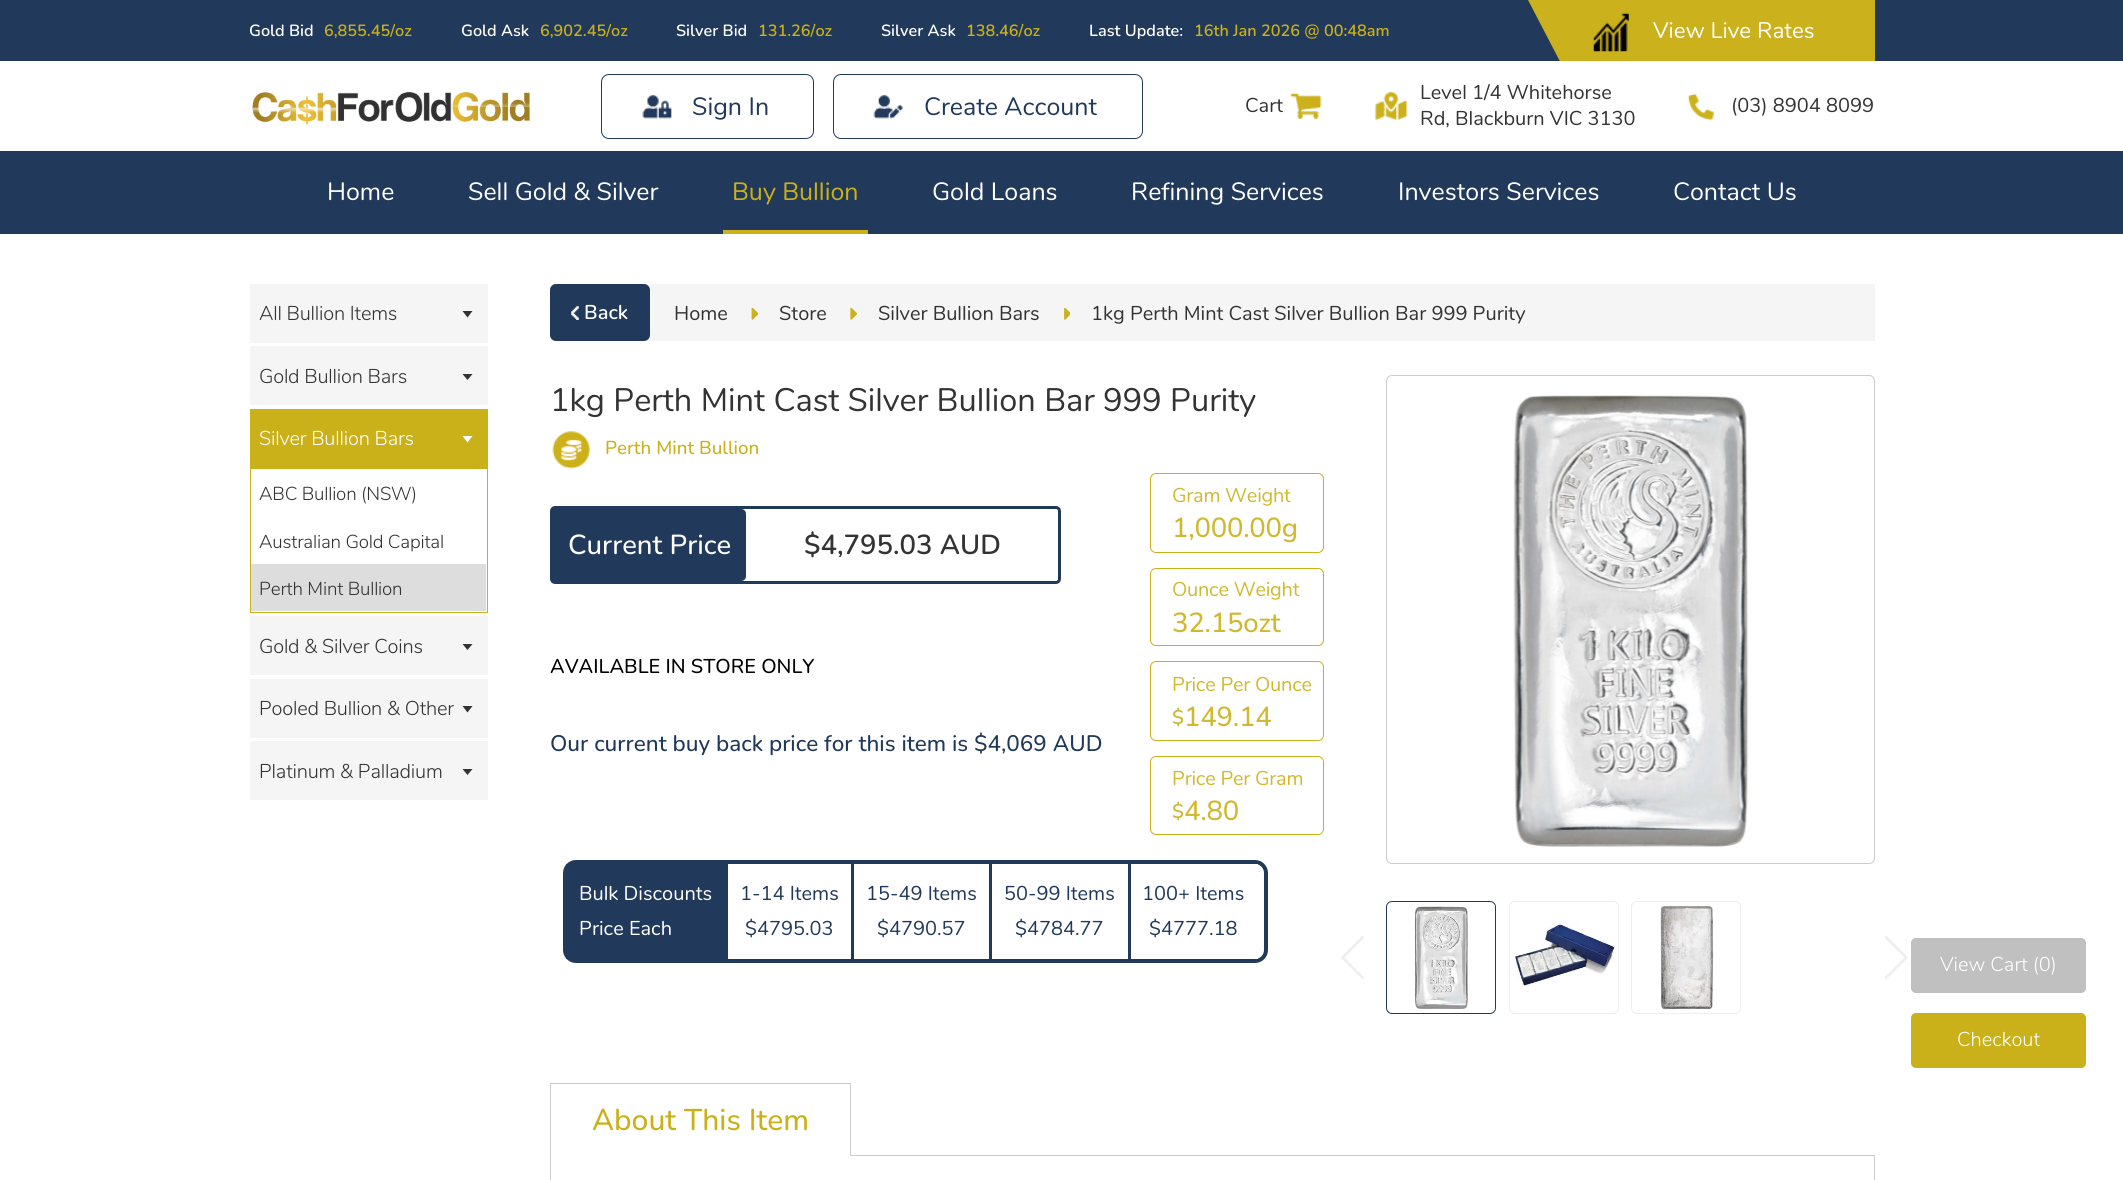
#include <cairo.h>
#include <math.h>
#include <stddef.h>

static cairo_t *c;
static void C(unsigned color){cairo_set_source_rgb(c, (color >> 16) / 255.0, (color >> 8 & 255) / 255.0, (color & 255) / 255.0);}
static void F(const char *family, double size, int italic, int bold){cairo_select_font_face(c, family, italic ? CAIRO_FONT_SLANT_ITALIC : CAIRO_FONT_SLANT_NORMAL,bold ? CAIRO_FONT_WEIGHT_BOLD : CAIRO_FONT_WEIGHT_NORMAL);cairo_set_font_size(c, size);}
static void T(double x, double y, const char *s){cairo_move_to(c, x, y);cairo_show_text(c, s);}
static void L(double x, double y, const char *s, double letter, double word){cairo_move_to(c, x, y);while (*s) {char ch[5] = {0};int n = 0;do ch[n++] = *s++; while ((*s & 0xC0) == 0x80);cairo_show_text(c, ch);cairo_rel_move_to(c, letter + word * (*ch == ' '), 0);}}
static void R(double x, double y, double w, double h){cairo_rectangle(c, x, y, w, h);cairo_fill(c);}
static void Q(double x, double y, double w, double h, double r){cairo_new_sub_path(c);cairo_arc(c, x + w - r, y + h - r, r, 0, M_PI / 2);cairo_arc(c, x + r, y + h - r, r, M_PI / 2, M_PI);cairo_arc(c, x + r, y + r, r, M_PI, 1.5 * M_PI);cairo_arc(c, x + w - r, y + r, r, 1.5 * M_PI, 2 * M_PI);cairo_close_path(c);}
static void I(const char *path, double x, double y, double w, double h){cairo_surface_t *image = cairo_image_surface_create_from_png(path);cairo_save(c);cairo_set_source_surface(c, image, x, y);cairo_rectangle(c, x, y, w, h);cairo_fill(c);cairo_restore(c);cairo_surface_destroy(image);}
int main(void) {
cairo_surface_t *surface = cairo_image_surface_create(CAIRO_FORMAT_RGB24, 2123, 1180);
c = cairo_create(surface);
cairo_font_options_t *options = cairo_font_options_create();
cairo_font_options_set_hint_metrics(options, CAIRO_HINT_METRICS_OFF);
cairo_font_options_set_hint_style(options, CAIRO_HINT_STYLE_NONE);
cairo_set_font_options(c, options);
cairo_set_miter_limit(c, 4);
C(0xffffff);
cairo_paint(c);
C(0x21395b);
R(0,0,2123,61);
F("Nunito SemiBold",16.25,0,0);
C(0xffffff);
T(249,36,"Gold Bid");
C(0xcbb119);
T(324,36,"6,855.45/oz");
C(0xffffff);
T(461,36,"Gold Ask");
C(0xcbb119);
T(540,36,"6,902.45/oz");
C(0xffffff);
T(676,36,"Silver Bid");
C(0xcbb119);
T(758,36,"131.26/oz");
C(0xffffff);
T(881,36,"Silver Ask");
C(0xcbb119);
T(966,36,"138.46/oz");
C(0xffffff);
T(1089,36,"Last Update:");
C(0xcbb119);
T(1194,36,"16th Jan 2026 @ 00:48am");
C(0xcbb11b);
R(1528,0,347,61);
cairo_save(c);
cairo_rectangle(c,250,0,1625,61);
cairo_clip(c);
C(0x21395b);
cairo_new_path(c);
cairo_move_to(c,1565,71);
cairo_line_to(c,1528,71);
cairo_line_to(c,1528,0);
cairo_close_path(c);
cairo_fill(c);
cairo_restore(c);
I("1.png",1593,13,36,39);
F("Nunito",22.5,0,0);
C(0xffffff);
T(1653,38,"View Live Rates");
I("2.png",252,92,278,33);
Q(601.5,74.5,212,64,7.5);
C(0x21395b);
cairo_set_line_width(c,1);
cairo_stroke(c);
I("3.png",642,94,30,25);
F("Nunito",25,0,0);
C(0x20395a);
T(692,115,"Sign In");
Q(833.5,74.5,309,64,7.5);
C(0x21395b);
cairo_stroke(c);
I("4.png",873,94,30,25);
C(0x20395a);
T(924,115,"Create Account");
F("Nunito",20,0,0);
C(0x333333);
T(1245,112,"Cart");
I("5.png",1290,93,32,26);
I("6.png",1374,91,34,30);
T(1420,99,"Level 1/4 Whitehorse");
T(1420,125,"Rd, Blackburn VIC 3130");
I("7.png",1688,93,26,28);
T(1731,112,"(03) 8904 8099");
C(0x21395b);
R(0,151,2123,83);
F("Nunito",25,0,0);
C(0xffffff);
T(327,200,"Home");
T(468,200,"Sell Gold & Silver");
C(0xcbb119);
T(732,200,"Buy Bullion");
C(0xcbb11b);
R(723,230,145,4);
C(0xffffff);
T(932,200,"Gold Loans");
T(1131,200,"Refining Services");
T(1398,200,"Investors Services");
T(1673,200,"Contact Us");
C(0xf5f5f5);
R(250,284,238,59);
F("Nunito Light",20,0,0);
C(0x333333);
L(259,320,"All Bullion Items",-.2,0);
cairo_new_path(c);
cairo_move_to(c,462.5,311);
cairo_line_to(c,472.5,311);
cairo_line_to(c,467.5,317.5);
cairo_close_path(c);
cairo_fill(c);
C(0xf5f5f5);
R(250,346,238,59);
C(0x333333);
L(259,383,"Gold Bullion Bars",-.2,0);
cairo_new_path(c);
cairo_move_to(c,462.5,374);
cairo_line_to(c,472.5,374);
cairo_line_to(c,467.5,380);
cairo_close_path(c);
cairo_fill(c);
C(0xcbb119);
R(250,409,238,59);
C(0xffffff);
L(259,445,"Silver Bullion Bars",-.2,0);
cairo_new_path(c);
cairo_move_to(c,462.5,436);
cairo_line_to(c,472.5,436);
cairo_line_to(c,467.5,442.5);
cairo_close_path(c);
cairo_fill(c);
cairo_rectangle(c,250.5,468.5,237,144);
C(0xcbb119);
cairo_stroke(c);
F("Nunito Light",18.75,0,0);
C(0x333333);
L(259,500,"ABC Bullion (NSW)",-.2,0);
L(259,548,"Australian Gold Capital",-.2,0);
C(0xdddddd);
R(251,564,235,47);
C(0x333333);
L(259,595,"Perth Mint Bullion",-.2,0);
C(0xf5f5f5);
R(250,616,238,59);
F("Nunito Light",20,0,0);
C(0x333333);
L(259,653,"Gold & Silver Coins",-.2,0);
cairo_new_path(c);
cairo_move_to(c,462.5,644);
cairo_line_to(c,472.5,644);
cairo_line_to(c,467.5,650);
cairo_close_path(c);
cairo_fill(c);
C(0xf5f5f5);
R(250,679,238,59);
C(0x333333);
L(259,715,"Pooled Bullion & Other",-.2,0);
cairo_new_path(c);
cairo_move_to(c,462.5,706);
cairo_line_to(c,472.5,706);
cairo_line_to(c,467.5,712.5);
cairo_close_path(c);
cairo_fill(c);
C(0xf5f5f5);
R(250,741,238,59);
C(0x333333);
L(259,778,"Platinum & Palladium",-.2,0);
cairo_new_path(c);
cairo_move_to(c,462.5,769);
cairo_line_to(c,472.5,769);
cairo_line_to(c,467.5,775);
cairo_close_path(c);
cairo_fill(c);
C(0x21395b);
Q(550,284,100,57,6);
cairo_fill(c);
I("8.png",571,306,8,14);
F("Nunito SemiBold",20,0,0);
C(0xffffff);
T(584,319,"Back");
C(0xf5f5f5);
R(650,284,1225,57);
F("Nunito",20,0,0);
C(0x333333);
T(674,320,"Home");
I("9.png",751,308,7,12);
T(779,320,"Store");
I("10.png",850,308,8,12);
T(878,320,"Silver Bullion Bars");
I("11.png",1064,308,6,12);
T(1091,320,"1kg Perth Mint Cast Silver Bullion Bar 999 Purity");
F("Nunito",32.5,0,0);
T(550,411,"1kg Perth Mint Cast Silver Bullion Bar 999 Purity");
I("12.png",552,431,39,38);
F("Nunito Medium",18.75,0,0);
C(0xcbb119);
T(605,454,"Perth Mint Bullion");
Q(551.5,507.5,508,75,3.5);
C(0x21395b);
cairo_set_line_width(c,3);
cairo_stroke(c);
cairo_new_path(c);
cairo_move_to(c,553,509);
cairo_line_to(c,741,509);
cairo_curve_to(c,744,509,746,511,746,514);
cairo_line_to(c,746,576);
cairo_curve_to(c,746,579,744,581,741,581);
cairo_line_to(c,553,581);
cairo_close_path(c);
cairo_fill(c);
F("Nunito Medium",27.5,0,0);
C(0xffffff);
T(568,554,"Current Price");
F("Nunito SemiBold",27.5,0,0);
C(0x333333);
T(804,554,"$4,795.03 AUD");
F("Nunito Medium",20,0,0);
C(0x000000);
T(550,673,"AVAILABLE IN STORE ONLY");
F("Nunito Medium",22.5,0,0);
C(0x20395a);
T(550,751,"Our current buy back price for this item is $4,069 AUD");
Q(1150.5,473.5,173,79,5.5);
C(0xcbb119);
cairo_set_line_width(c,1);
cairo_stroke(c);
F("Nunito",20,0,0);
C(0xd0b930);
L(1172,502,"Gram Weight",-.25,0);
F("Nunito Medium",27.5,0,0);
L(1172,537,"1,000.00g",-.25,0);
Q(1150.5,568.5,173,77,5.5);
C(0xcbb119);
cairo_stroke(c);
F("Nunito",20,0,0);
C(0xd0b930);
L(1172,596,"Ounce Weight",-.25,0);
F("Nunito Medium",27.5,0,0);
L(1172,632,"32.15ozt",-.25,0);
Q(1150.5,661.5,173,79,5.5);
C(0xcbb119);
cairo_stroke(c);
F("Nunito",20,0,0);
C(0xd0b930);
L(1172,691,"Price Per Ounce",-.25,0);
F("Nunito SemiBold",20,0,0);
L(1172,724,"$",-.25,0);
F("Nunito Medium",27.5,0,0);
L(1184,726,"149.14",-.25,0);
Q(1150.5,756.5,173,78,5.5);
C(0xcbb119);
cairo_stroke(c);
F("Nunito",20,0,0);
C(0xd0b930);
L(1172,785,"Price Per Gram",-.25,0);
F("Nunito SemiBold",20,0,0);
L(1172,818,"$",-.25,0);
F("Nunito Medium",27.5,0,0);
L(1184,820,"4.80",-.25,0);
Q(565,862,701,99,11);
C(0x21395b);
cairo_set_line_width(c,4);
cairo_stroke(c);
R(566,864,159,95);
F("Nunito",20,0,0);
C(0xffffff);
T(579,900,"Bulk Discounts");
T(579,935,"Price Each");
C(0x21395b);
R(725,863,3,97);
C(0x20395a);
T(740,900,"1-14 Items");
T(745,935,"$4795.03");
C(0x21395b);
R(851,863,3,97);
C(0x20395a);
T(866,900,"15-49 Items");
T(877,935,"$4790.57");
C(0x21395b);
R(989,863,3,97);
C(0x20395a);
T(1004,900,"50-99 Items");
T(1015,935,"$4784.77");
C(0xffffff);
R(1255,864,3,95);
C(0x21395b);
R(1128,863,3,97);
C(0x20395a);
T(1142,900,"100+ Items");
T(1149,935,"$4777.18");
Q(1386.5,375.5,488,488,5.5);
C(0xcccccc);
cairo_set_line_width(c,1);
cairo_stroke(c);
I("13.png",1513,395,236,452);
Q(1386.5,901.5,109,112,5.5);
C(0x21395b);
cairo_stroke(c);
I("14.png",1414,904,81,107);
Q(1509.5,901.5,109,112,5.5);
C(0xeeeeee);
cairo_stroke(c);
I("15.png",1514,923,101,63);
Q(1631.5,901.5,109,112,5.5);
cairo_stroke(c);
I("16.png",1660,906,54,105);
I("17.png",1341,936,23,43);
I("18.png",1885,936,23,43);
cairo_rectangle(c,550.5,1155.5,1324,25);
C(0xcccccc);
cairo_stroke(c);
C(0xffffff);
R(551,1155,299,1);
C(0xcccccc);
R(550,1083,301,1);
R(850,1083,1,73);
R(550,1083,1,73);
F("Nunito Medium",30,0,0);
C(0xcbb119);
T(592,1130,"About This Item");
C(0xc0c0c0);
Q(1911,938,175,55,5);
cairo_fill(c);
F("Nunito Light",20,0,0);
C(0xffffff);
T(1940,971,"View Cart (0)");
C(0xcbb119);
Q(1911,1013,175,55,5);
cairo_fill(c);
C(0xffffff);
T(1957,1046,"Checkout");
cairo_surface_write_to_png(surface, "o.png");
cairo_font_options_destroy(options);
cairo_destroy(c);
cairo_surface_destroy(surface);
return 0;
}
